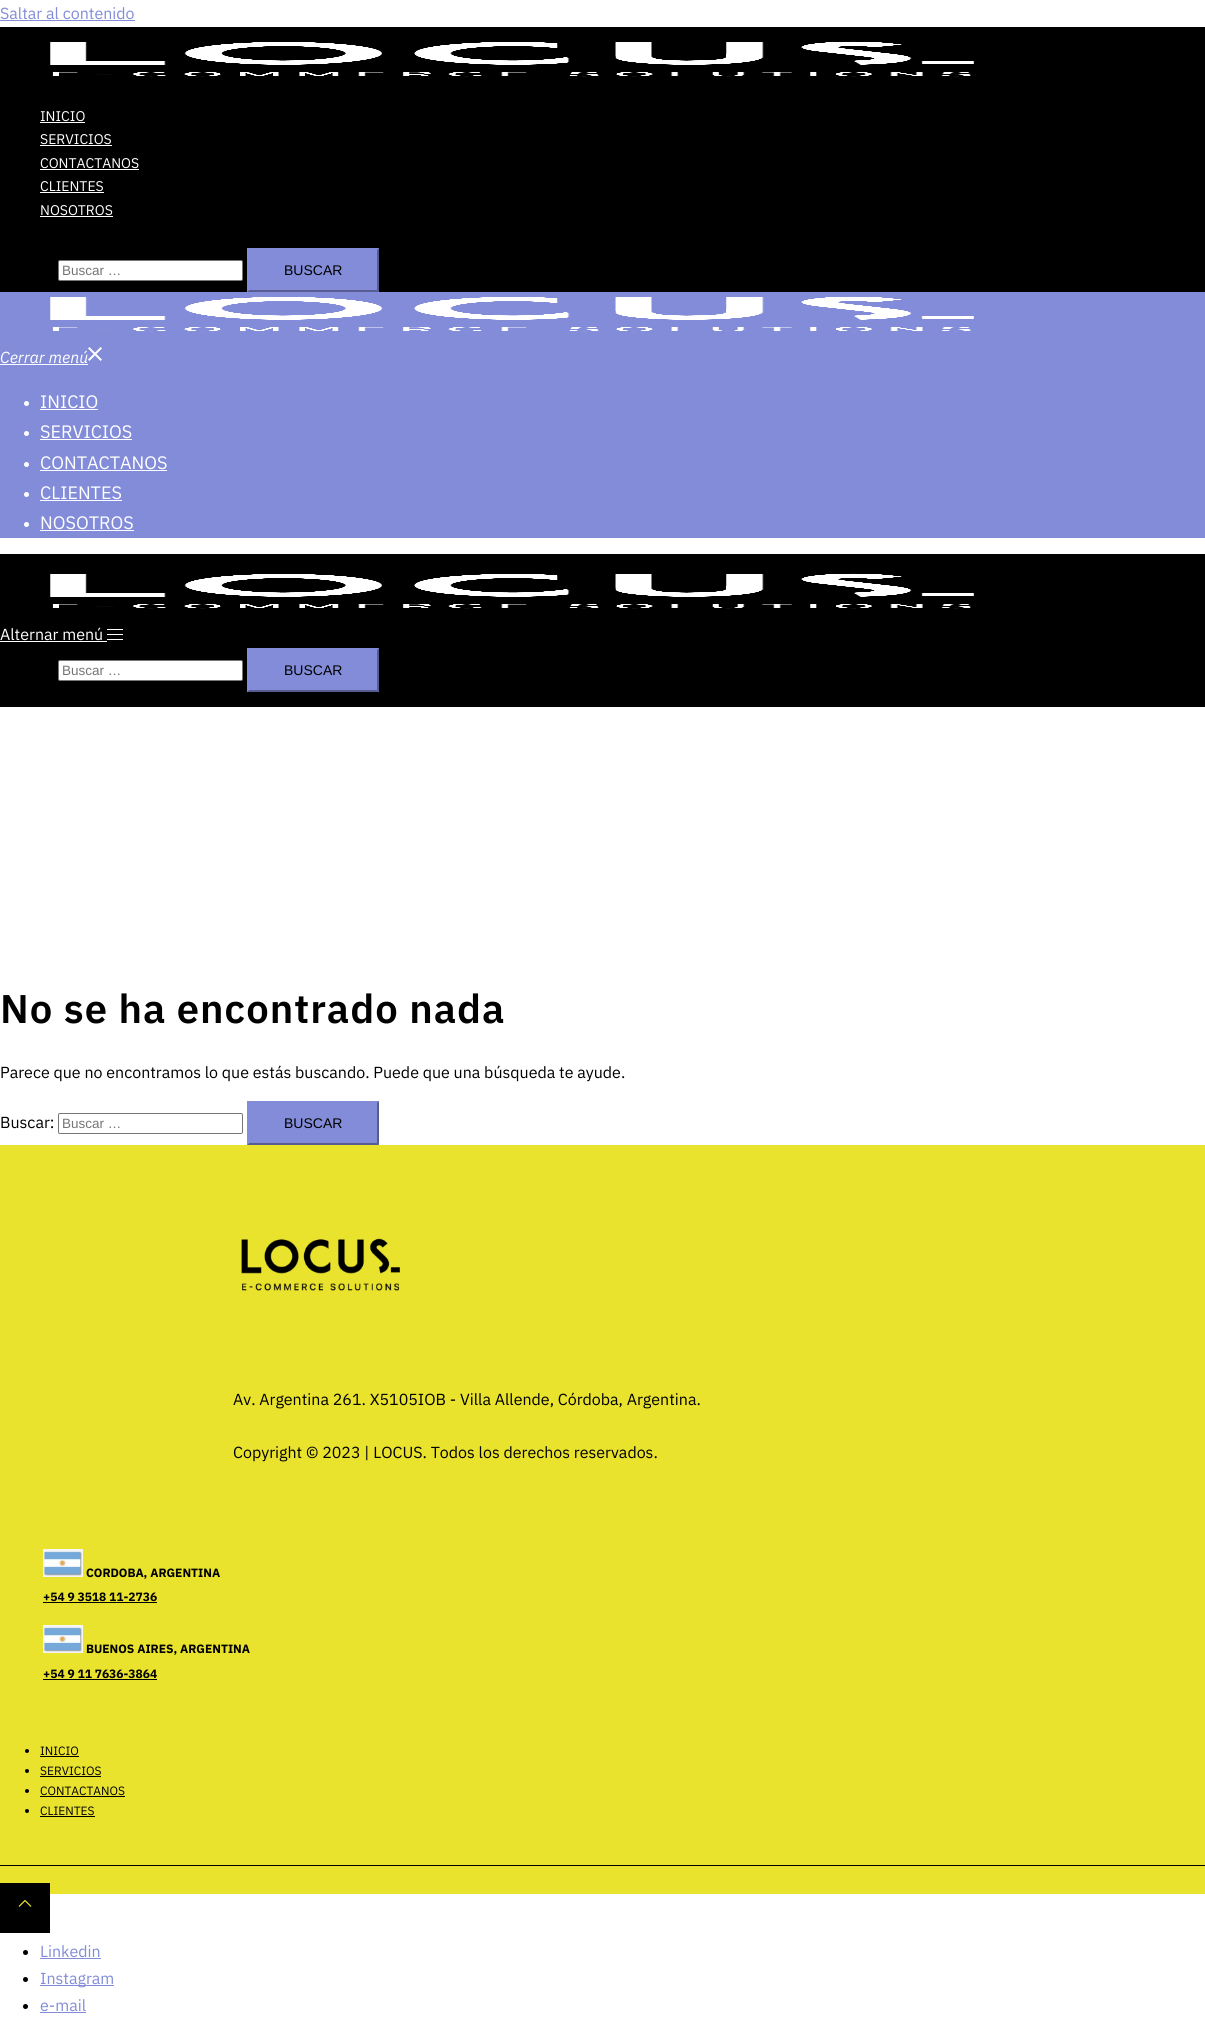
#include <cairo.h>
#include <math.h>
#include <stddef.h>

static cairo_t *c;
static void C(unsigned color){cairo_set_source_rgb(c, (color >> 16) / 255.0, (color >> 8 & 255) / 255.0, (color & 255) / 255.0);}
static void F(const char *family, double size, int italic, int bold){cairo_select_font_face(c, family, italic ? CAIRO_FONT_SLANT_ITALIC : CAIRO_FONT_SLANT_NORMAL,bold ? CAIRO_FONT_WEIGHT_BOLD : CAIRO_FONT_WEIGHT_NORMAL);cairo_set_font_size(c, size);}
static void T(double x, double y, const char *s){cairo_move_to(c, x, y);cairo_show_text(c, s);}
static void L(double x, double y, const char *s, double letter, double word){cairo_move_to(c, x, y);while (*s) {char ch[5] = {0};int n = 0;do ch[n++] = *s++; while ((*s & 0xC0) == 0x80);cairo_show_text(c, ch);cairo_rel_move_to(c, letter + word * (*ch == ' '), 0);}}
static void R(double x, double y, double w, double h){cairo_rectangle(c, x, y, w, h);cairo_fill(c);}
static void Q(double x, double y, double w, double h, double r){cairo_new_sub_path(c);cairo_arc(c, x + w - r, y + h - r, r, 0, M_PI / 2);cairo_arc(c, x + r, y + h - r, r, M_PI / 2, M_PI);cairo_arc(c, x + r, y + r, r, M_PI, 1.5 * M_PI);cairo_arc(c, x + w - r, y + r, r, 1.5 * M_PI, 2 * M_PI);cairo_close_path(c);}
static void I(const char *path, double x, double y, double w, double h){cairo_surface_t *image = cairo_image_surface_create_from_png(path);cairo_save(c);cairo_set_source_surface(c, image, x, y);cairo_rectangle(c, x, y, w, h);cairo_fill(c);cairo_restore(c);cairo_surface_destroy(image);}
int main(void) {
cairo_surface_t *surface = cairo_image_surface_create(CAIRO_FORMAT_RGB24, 1205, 2023);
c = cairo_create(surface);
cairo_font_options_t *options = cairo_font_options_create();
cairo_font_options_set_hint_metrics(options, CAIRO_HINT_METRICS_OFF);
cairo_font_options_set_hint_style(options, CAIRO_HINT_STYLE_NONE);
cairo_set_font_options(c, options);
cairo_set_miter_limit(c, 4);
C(0xffffff);
cairo_paint(c);
F("IBM Plex Sans",16,0,0);
C(0x828cd8);
T(0,19,"Saltar al contenido");
R(0,20,135,1);
C(0x000000);
R(0,27,1205,265);
I("1.png",50,41,924,36);
F("IBM Plex Sans",14,0,0);
C(0xffffff);
T(40,121,"INICIO");
R(40,122,45,1);
T(40,144,"SERVICIOS");
R(40,145,72,1);
T(40,168,"CONTACTANOS");
R(40,169,99,1);
T(40,191,"CLIENTES");
R(40,192,64,1);
T(40,215,"NOSOTROS");
R(40,216,73,1);
Q(58.5,260.5,184,20,1.5);
cairo_fill_preserve(c);
C(0x767676);
cairo_set_line_width(c,1);
cairo_stroke(c);
F("Liberation Sans",13.5,0,0);
C(0x757575);
T(62,275,"Buscar …");
C(0x828cd8);
R(247,248,132,44);
C(0x575d90);
cairo_new_path(c);
cairo_move_to(c,379,248);
cairo_line_to(c,379,292);
cairo_line_to(c,377,290);
cairo_line_to(c,377,250);
cairo_close_path(c);
cairo_fill(c);
cairo_new_path(c);
cairo_move_to(c,379,292);
cairo_line_to(c,247,292);
cairo_line_to(c,249,290);
cairo_line_to(c,377,290);
cairo_close_path(c);
cairo_fill(c);
C(0x828cd8);
cairo_new_path(c);
cairo_move_to(c,247,292);
cairo_line_to(c,247,248);
cairo_line_to(c,249,250);
cairo_line_to(c,249,290);
cairo_close_path(c);
cairo_fill(c);
F("Liberation Sans",14,0,0);
C(0x000000);
T(284,275,"BUSCAR");
C(0x828cd8);
R(0,292,1205,246);
I("2.png",50,296,924,36);
F("IBM Plex Sans",16,1,0);
C(0xffffff);
T(0,363,"Cerrar menú");
R(0,364,88,1);
I("3.png",88,347,14,14);
cairo_arc(c,26.5,403.5,2.5,0,2 * M_PI);
cairo_fill(c);
F("IBM Plex Sans",18,0,0);
T(40,408,"INICIO");
R(40,409,58,1);
cairo_new_path(c);
cairo_arc(c,26.5,433.5,2.5,0,2 * M_PI);
cairo_fill(c);
T(40,438,"SERVICIOS");
R(40,439,92,1);
cairo_new_path(c);
cairo_arc(c,26.5,464.5,2.5,0,2 * M_PI);
cairo_fill(c);
T(40,469,"CONTACTANOS");
R(40,470,127,1);
cairo_new_path(c);
cairo_arc(c,26.5,494.5,2.5,0,2 * M_PI);
cairo_fill(c);
T(40,499,"CLIENTES");
R(40,500,82,1);
cairo_new_path(c);
cairo_arc(c,26.5,524.5,2.5,0,2 * M_PI);
cairo_fill(c);
T(40,529,"NOSOTROS");
R(40,530,94,1);
C(0x000000);
R(0,554,1205,153);
I("4.png",50,573,924,36);
F("IBM Plex Sans",16,0,0);
C(0xffffff);
T(0,640,"Alternar menú");
R(0,641,107,1);
R(107,629,16,1);
R(107,634,16,1);
R(107,639,16,1);
Q(58.5,660.5,184,20,1.5);
cairo_fill_preserve(c);
C(0x767676);
cairo_stroke(c);
F("Liberation Sans",13.5,0,0);
C(0x757575);
T(62,675,"Buscar …");
C(0x828cd8);
R(247,648,132,44);
C(0x575d90);
cairo_new_path(c);
cairo_move_to(c,379,648);
cairo_line_to(c,379,692);
cairo_line_to(c,377,690);
cairo_line_to(c,377,650);
cairo_close_path(c);
cairo_fill(c);
cairo_new_path(c);
cairo_move_to(c,379,692);
cairo_line_to(c,247,692);
cairo_line_to(c,249,690);
cairo_line_to(c,377,690);
cairo_close_path(c);
cairo_fill(c);
C(0x828cd8);
cairo_new_path(c);
cairo_move_to(c,247,692);
cairo_line_to(c,247,648);
cairo_line_to(c,249,650);
cairo_line_to(c,249,690);
cairo_close_path(c);
cairo_fill(c);
F("Liberation Sans",14,0,0);
C(0x000000);
T(284,675,"BUSCAR");
F("IBM Plex Sans SemiBold",40,0,0);
L(0,1023,"No se ha encontrado nada",1,0);
F("IBM Plex Sans",16,0,0);
T(0,1078,"Parece que no encontramos lo que estás buscando. Puede que una búsqueda te ayude.");
T(0,1128,"Buscar:");
Q(58.5,1113.5,184,20,1.5);
C(0x767676);
cairo_stroke(c);
F("Liberation Sans",13.5,0,0);
C(0x757575);
T(62,1128,"Buscar …");
C(0x828cd8);
R(247,1101,132,44);
C(0x575d90);
cairo_new_path(c);
cairo_move_to(c,379,1101);
cairo_line_to(c,379,1145);
cairo_line_to(c,377,1143);
cairo_line_to(c,377,1103);
cairo_close_path(c);
cairo_fill(c);
cairo_new_path(c);
cairo_move_to(c,379,1145);
cairo_line_to(c,247,1145);
cairo_line_to(c,249,1143);
cairo_line_to(c,377,1143);
cairo_close_path(c);
cairo_fill(c);
C(0x828cd8);
cairo_new_path(c);
cairo_move_to(c,247,1145);
cairo_line_to(c,247,1101);
cairo_line_to(c,249,1103);
cairo_line_to(c,249,1143);
cairo_close_path(c);
cairo_fill(c);
F("Liberation Sans",14,0,0);
C(0x000000);
T(284,1128,"BUSCAR");
C(0xeae32e);
R(0,1145,1205,720);
I("5.png",241,1238,159,53);
F("IBM Plex Sans",16,0,0);
C(0x000000);
T(233,1405,"Av. Argentina 261. X5105IOB - Villa Allende, Córdoba, Argentina.");
T(233,1458,"Copyright © 2023 | LOCUS. Todos los derechos reservados.");
I("6.png",43,1549,40,28);
F("IBM Plex Sans",12,0,1);
T(86,1577,"CORDOBA, ARGENTINA");
T(43,1601,"+54 9 3518 11-2736");
R(43,1602,114,1);
I("6.png",43,1625,40,28);
T(86,1653,"BUENOS AIRES, ARGENTINA");
T(43,1678,"+54 9 11 7636-3864");
R(43,1679,114,1);
cairo_new_path(c);
cairo_arc(c,27,1751,2,0,2 * M_PI);
cairo_fill(c);
F("IBM Plex Sans",12,0,0);
T(40,1755,"INICIO");
R(40,1756,39,1);
cairo_new_path(c);
cairo_arc(c,27,1771,2,0,2 * M_PI);
cairo_fill(c);
T(40,1775,"SERVICIOS");
R(40,1776,61,1);
cairo_new_path(c);
cairo_arc(c,27,1791,2,0,2 * M_PI);
cairo_fill(c);
T(40,1795,"CONTACTANOS");
R(40,1796,85,1);
cairo_new_path(c);
cairo_arc(c,27,1811,2,0,2 * M_PI);
cairo_fill(c);
T(40,1815,"CLIENTES");
R(40,1816,55,1);
C(0xeae32e);
R(0,1866,1205,28);
C(0x000000);
R(0,1865,1205,1);
R(0,1883,50,50);
cairo_new_path(c);
cairo_move_to(c,19,1906.5);
cairo_line_to(c,25,1900.5);
cairo_line_to(c,31,1906.5);
C(0xeae32e);
cairo_set_line_width(c,1.2);
cairo_set_line_join(c,CAIRO_LINE_JOIN_ROUND);
cairo_stroke(c);
C(0x000000);
cairo_arc(c,25.5,1952.5,2.5,0,2 * M_PI);
cairo_fill(c);
F("IBM Plex Sans",16,0,0);
C(0x828cd8);
T(40,1957,"Linkedin");
R(40,1958,61,1);
C(0x000000);
cairo_new_path(c);
cairo_arc(c,25.5,1979.5,2.5,0,2 * M_PI);
cairo_fill(c);
C(0x828cd8);
R(40,1985,74,1);
T(40,1984,"Instagram");
C(0x000000);
cairo_new_path(c);
cairo_arc(c,25.5,2006.5,2.5,0,2 * M_PI);
cairo_fill(c);
C(0x828cd8);
T(40,2011,"e-mail");
R(40,2012,46,1);
cairo_surface_write_to_png(surface, "o.png");
cairo_font_options_destroy(options);
cairo_destroy(c);
cairo_surface_destroy(surface);
return 0;
}
